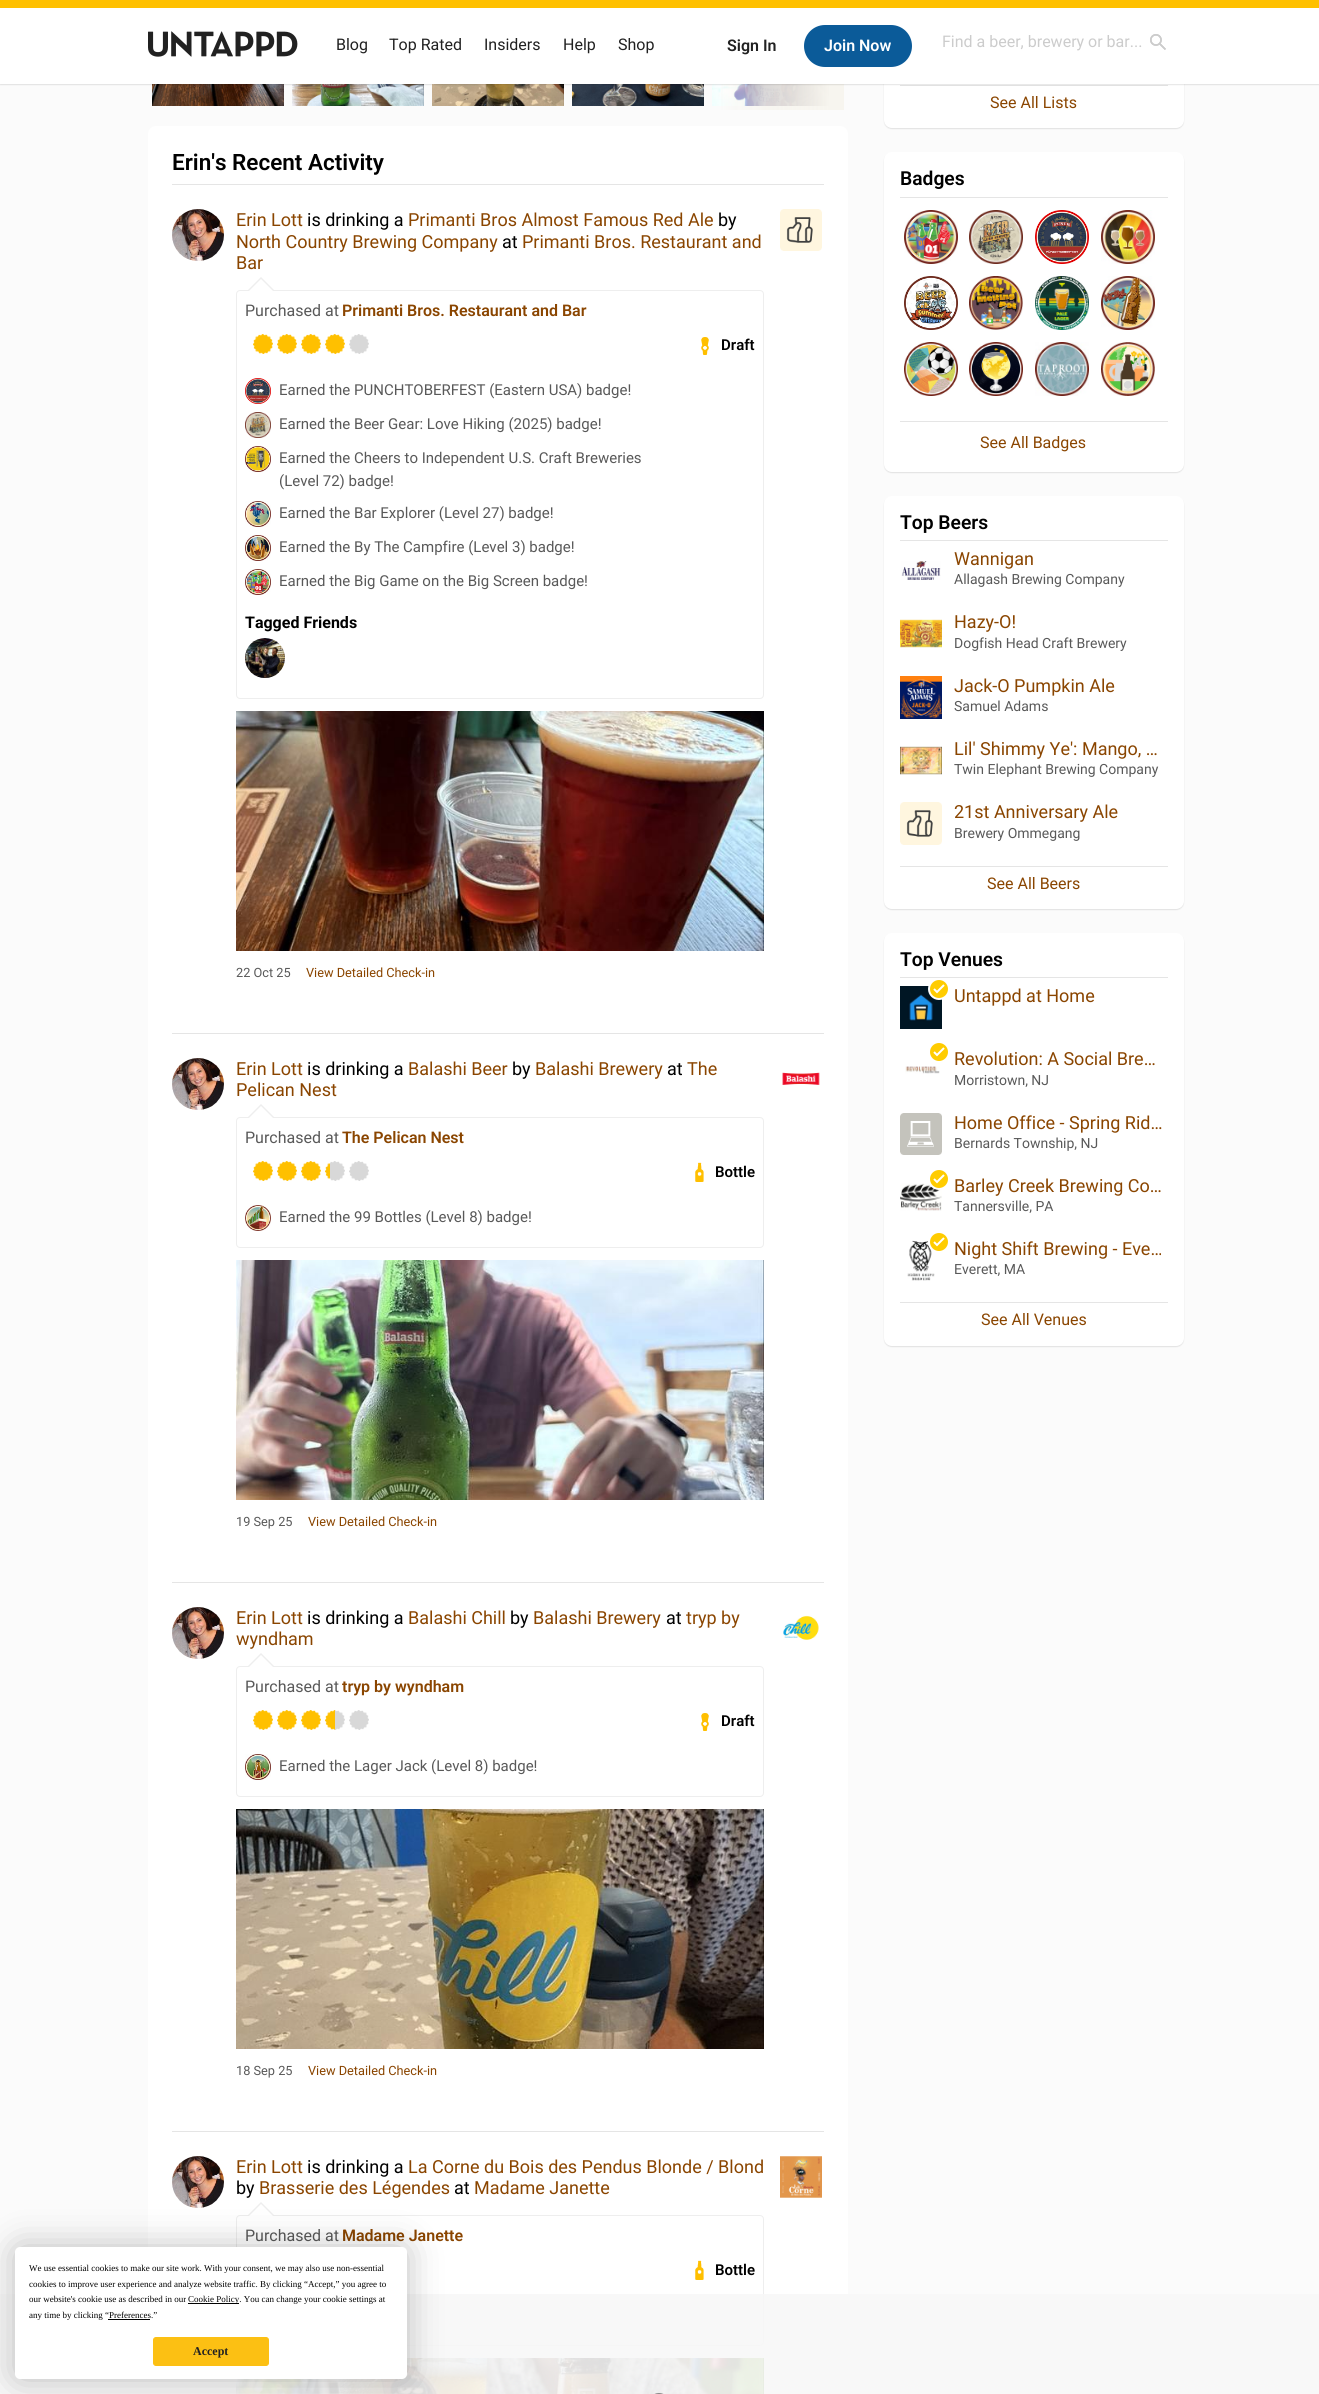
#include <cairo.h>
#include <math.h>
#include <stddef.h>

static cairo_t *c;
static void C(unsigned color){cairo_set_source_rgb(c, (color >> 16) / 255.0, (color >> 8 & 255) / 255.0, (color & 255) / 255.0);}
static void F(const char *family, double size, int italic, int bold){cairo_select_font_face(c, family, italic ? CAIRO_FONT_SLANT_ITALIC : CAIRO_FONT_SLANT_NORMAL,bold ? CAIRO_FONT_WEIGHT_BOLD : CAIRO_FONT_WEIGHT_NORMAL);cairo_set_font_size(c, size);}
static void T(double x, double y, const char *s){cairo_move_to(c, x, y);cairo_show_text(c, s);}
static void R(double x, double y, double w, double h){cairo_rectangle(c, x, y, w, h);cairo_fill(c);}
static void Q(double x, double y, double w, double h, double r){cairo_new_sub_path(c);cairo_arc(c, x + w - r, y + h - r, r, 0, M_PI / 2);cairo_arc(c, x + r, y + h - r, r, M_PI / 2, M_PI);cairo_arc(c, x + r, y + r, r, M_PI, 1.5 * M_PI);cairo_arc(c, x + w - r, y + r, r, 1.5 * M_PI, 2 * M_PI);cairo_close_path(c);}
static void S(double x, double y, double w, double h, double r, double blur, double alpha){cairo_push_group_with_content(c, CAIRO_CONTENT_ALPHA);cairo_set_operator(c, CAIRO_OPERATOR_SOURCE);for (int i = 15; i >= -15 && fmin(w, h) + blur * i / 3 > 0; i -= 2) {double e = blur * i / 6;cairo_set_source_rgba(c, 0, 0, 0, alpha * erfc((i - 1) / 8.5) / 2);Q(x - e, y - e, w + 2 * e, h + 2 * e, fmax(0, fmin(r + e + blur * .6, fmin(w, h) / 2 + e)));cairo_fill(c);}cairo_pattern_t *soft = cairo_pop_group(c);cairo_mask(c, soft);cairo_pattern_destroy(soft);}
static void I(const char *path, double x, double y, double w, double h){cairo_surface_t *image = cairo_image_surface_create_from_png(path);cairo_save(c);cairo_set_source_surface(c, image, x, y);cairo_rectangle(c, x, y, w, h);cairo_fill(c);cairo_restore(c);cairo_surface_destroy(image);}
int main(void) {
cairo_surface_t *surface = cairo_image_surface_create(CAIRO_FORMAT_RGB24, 1319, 2394);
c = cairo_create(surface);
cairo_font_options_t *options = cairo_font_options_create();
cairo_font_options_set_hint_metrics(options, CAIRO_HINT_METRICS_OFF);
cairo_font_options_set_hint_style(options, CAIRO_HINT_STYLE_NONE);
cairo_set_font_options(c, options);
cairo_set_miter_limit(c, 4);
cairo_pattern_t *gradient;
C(0xfbfbfb);
cairo_paint(c);
I("4.png",152,84,132,22);
I("5.png",292,84,132,22);
I("6.png",432,84,132,22);
I("7.png",572,84,132,22);
I("8.png",712,84,117,22);
gradient = cairo_pattern_create_linear(712,42,844,42);
cairo_pattern_add_color_stop_rgba(gradient,0,0.969,0.961,0.937,0);
cairo_pattern_add_color_stop_rgba(gradient,.4,0.969,0.961,0.937,.8);
cairo_pattern_add_color_stop_rgba(gradient,.9,0.969,0.961,0.937,1);
cairo_set_source(c,gradient);
cairo_pattern_destroy(gradient);
R(721,84,123,26);
C(0x000000);
S(884,-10,300,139,8,.5,.1);
C(0xffffff);
Q(884,-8,300,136,8);
cairo_fill(c);
C(0xe5e5e5);
R(900,85,268,1);
C(0x000000);
S(0,1,1319,84,0,.5,.1);
C(0xffffff);
R(0,8,1319,76);
C(0xffc000);
R(0,0,1319,8);
I("1.png",148,31,150,26);
F("Roboto",16,0,0);
C(0x212121);
T(336,50,"Blog");
T(389,50,"Top Rated");
T(484,50,"Insiders");
T(563,50,"Help");
T(618,50,"Shop");
I("3.png",1150,34,16,16);
I("2.png",1150,34,16,16);
C(0xcccccc);
T(942,47,"Find a beer, brewery or bar...");
F("Roboto SemiBold",16,0,0);
C(0x212121);
T(727,51,"Sign In");
C(0x0b5b99);
Q(804,25,108,42,21);
cairo_fill(c);
C(0xffffff);
T(824,51,"Join Now");
Q(148,126,700,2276,8);
cairo_fill(c);
C(0xe5e5e5);
R(172,184,652,1);
F("Roboto SemiBold",22.5,0,0);
C(0x000000);
T(172,170,"Erin's Recent Activity");
C(0xe5e5e5);
R(172,1033,652,1);
I("9.png",172,209,52,52);
F("Roboto",18,0,0);
C(0x8a4500);
T(236,226,"Erin Lott");
C(0x000000);
T(307,226,"is drinking a");
C(0x8a4500);
T(408,226,"Primanti Bros Almost Famous Red Ale");
C(0x000000);
T(718,226,"by");
C(0x8a4500);
T(236,248,"North Country Brewing Company");
C(0x000000);
T(502,248,"at");
C(0x8a4500);
T(522,248,"Primanti Bros. Restaurant and");
T(236,269,"Bar");
I("10.png",780,209,42,42);
Q(236.5,290.5,527,408,3.5);
C(0xeeeeee);
cairo_set_line_width(c,1);
cairo_stroke(c);
cairo_new_path(c);
cairo_move_to(c,275,291);
cairo_line_to(c,247,291);
cairo_line_to(c,261,277);
cairo_close_path(c);
cairo_fill(c);
C(0xffffff);
cairo_new_path(c);
cairo_move_to(c,273,291);
cairo_line_to(c,249,291);
cairo_line_to(c,261,279);
cairo_close_path(c);
cairo_fill(c);
F("Roboto",16,0,0);
C(0x595959);
T(245,316,"Purchased at");
F("Roboto SemiBold",16,0,0);
C(0x8a4500);
T(342,316,"Primanti Bros. Restaurant and Bar");
I("11.png",253,334,20,20);
I("12.png",277,334,20,20);
I("12.png",301,334,20,20);
I("12.png",325,334,20,20);
I("13.png",349,334,20,20);
I("14.png",701,337,8,18);
F("Roboto SemiBold",15,0,0);
C(0x000000);
T(721,350,"Draft");
I("15.png",245,378,26,26);
F("Roboto",15,0,0);
C(0x595959);
T(279,395,"Earned the PUNCHTOBERFEST (Eastern USA) badge!");
I("16.png",245,412,26,26);
T(279,429,"Earned the Beer Gear: Love Hiking (2025) badge!");
I("17.png",245,446,26,26);
T(279,463,"Earned the Cheers to Independent U.S. Craft Breweries");
T(279,486,"(Level 72) badge!");
I("18.png",245,501,26,26);
T(279,518,"Earned the Bar Explorer (Level 27) badge!");
I("19.png",245,535,26,26);
T(279,552,"Earned the By The Campfire (Level 3) badge!");
I("20.png",245,569,26,26);
T(279,586,"Earned the Big Game on the Big Screen badge!");
F("Roboto",16,0,1);
C(0x000000);
T(245,628,"Tagged Friends");
I("21.png",245,638,40,40);
I("22.png",236,711,528,240);
F("Roboto",12.75,0,0);
C(0x595959);
T(236,977,"22 Oct 25");
C(0x8a4500);
T(306,977,"View Detailed Check-in");
C(0xe5e5e5);
R(172,1582,652,1);
I("9.png",172,1058,52,52);
F("Roboto",18,0,0);
C(0x8a4500);
T(236,1075,"Erin Lott");
C(0x000000);
T(307,1075,"is drinking a");
C(0x8a4500);
T(408,1075,"Balashi Beer");
C(0x000000);
T(512,1075,"by");
C(0x8a4500);
T(535,1075,"Balashi Brewery");
C(0x000000);
T(667,1075,"at");
C(0x8a4500);
T(687,1075,"The");
T(236,1096,"Pelican Nest");
I("23.png",782,1072,38,13);
Q(236.5,1117.5,527,130,3.5);
C(0xeeeeee);
cairo_stroke(c);
cairo_new_path(c);
cairo_move_to(c,275,1118);
cairo_line_to(c,247,1118);
cairo_line_to(c,261,1104);
cairo_close_path(c);
cairo_fill(c);
C(0xffffff);
cairo_new_path(c);
cairo_move_to(c,273,1118);
cairo_line_to(c,249,1118);
cairo_line_to(c,261,1106);
cairo_close_path(c);
cairo_fill(c);
F("Roboto",16,0,0);
C(0x595959);
T(245,1143,"Purchased at");
F("Roboto SemiBold",16,0,0);
C(0x8a4500);
T(342,1143,"The Pelican Nest");
I("11.png",253,1161,20,20);
I("12.png",277,1161,20,20);
I("12.png",301,1161,20,20);
I("24.png",325,1161,20,20);
I("13.png",349,1161,20,20);
I("25.png",695,1162,9,20);
F("Roboto SemiBold",15,0,0);
C(0x000000);
T(715,1177,"Bottle");
I("26.png",245,1205,26,26);
F("Roboto",15,0,0);
C(0x595959);
T(279,1222,"Earned the 99 Bottles (Level 8) badge!");
I("27.png",236,1260,528,240);
F("Roboto",12.75,0,0);
T(236,1526,"19 Sep 25");
C(0x8a4500);
T(308,1526,"View Detailed Check-in");
C(0xe5e5e5);
R(172,2131,652,1);
I("9.png",172,1607,52,52);
F("Roboto",18,0,0);
C(0x8a4500);
T(236,1624,"Erin Lott");
C(0x000000);
T(307,1624,"is drinking a");
C(0x8a4500);
T(408,1624,"Balashi Chill");
C(0x000000);
T(510,1624,"by");
C(0x8a4500);
T(533,1624,"Balashi Brewery");
C(0x000000);
T(666,1624,"at");
C(0x8a4500);
T(686,1624,"tryp by");
T(236,1645,"wyndham");
I("28.png",783,1615,36,25);
Q(236.5,1666.5,527,130,3.5);
C(0xeeeeee);
cairo_stroke(c);
cairo_new_path(c);
cairo_move_to(c,275,1667);
cairo_line_to(c,247,1667);
cairo_line_to(c,261,1653);
cairo_close_path(c);
cairo_fill(c);
C(0xffffff);
cairo_new_path(c);
cairo_move_to(c,273,1667);
cairo_line_to(c,249,1667);
cairo_line_to(c,261,1655);
cairo_close_path(c);
cairo_fill(c);
F("Roboto",16,0,0);
C(0x595959);
T(245,1692,"Purchased at");
F("Roboto SemiBold",16,0,0);
C(0x8a4500);
T(342,1692,"tryp by wyndham");
I("11.png",253,1710,20,20);
I("12.png",277,1710,20,20);
I("12.png",301,1710,20,20);
I("29.png",325,1710,20,20);
I("13.png",349,1710,20,20);
I("14.png",701,1713,8,18);
F("Roboto SemiBold",15,0,0);
C(0x000000);
T(721,1726,"Draft");
I("30.png",245,1754,26,26);
F("Roboto",15,0,0);
C(0x595959);
T(279,1771,"Earned the Lager Jack (Level 8) badge!");
I("31.png",236,1809,528,240);
F("Roboto",12.75,0,0);
T(236,2075,"18 Sep 25");
C(0x8a4500);
T(308,2075,"View Detailed Check-in");
I("9.png",172,2156,52,52);
F("Roboto",18,0,0);
T(236,2173,"Erin Lott");
C(0x000000);
T(307,2173,"is drinking a");
C(0x8a4500);
T(408,2173,"La Corne du Bois des Pendus Blonde / Blond");
C(0x000000);
T(236,2194,"by");
C(0x8a4500);
T(259,2194,"Brasserie des Légendes");
C(0x000000);
T(454,2194,"at");
C(0x8a4500);
T(474,2194,"Madame Janette");
I("32.png",780,2156,42,42);
Q(236.5,2215.5,527,130,3.5);
C(0xeeeeee);
cairo_stroke(c);
cairo_new_path(c);
cairo_move_to(c,275,2216);
cairo_line_to(c,247,2216);
cairo_line_to(c,261,2202);
cairo_close_path(c);
cairo_fill(c);
C(0xffffff);
cairo_new_path(c);
cairo_move_to(c,273,2216);
cairo_line_to(c,249,2216);
cairo_line_to(c,261,2204);
cairo_close_path(c);
cairo_fill(c);
F("Roboto",16,0,0);
C(0x595959);
T(245,2241,"Purchased at");
F("Roboto SemiBold",16,0,0);
C(0x8a4500);
T(342,2241,"Madame Janette");
I("25.png",695,2260,9,20);
F("Roboto SemiBold",15,0,0);
C(0x000000);
T(715,2275,"Bottle");
I("33.png",236,2358,528,36);
F("Roboto",16,0,0);
C(0x8a4500);
T(990,108,"See All Lists");
C(0x000000);
S(884,153,300,320,8,.5,.1);
C(0xffffff);
Q(884,152,300,320,8);
cairo_fill(c);
C(0xe5e5e5);
R(900,197,268,1);
F("Roboto SemiBold",19.25,0,0);
C(0x000000);
T(900,185,"Badges");
I("34.png",904,210,54,54);
I("35.png",969,210,54,54);
I("36.png",1035,210,54,54);
I("37.png",1101,210,54,54);
I("38.png",904,276,54,54);
I("39.png",969,276,54,54);
I("40.png",1035,276,54,54);
I("41.png",1101,276,54,54);
I("42.png",904,342,54,54);
I("43.png",969,342,54,54);
I("44.png",1035,342,54,54);
I("45.png",1101,342,54,54);
C(0xe5e5e5);
R(900,421,268,1);
F("Roboto",16,0,0);
C(0x8a4500);
T(980,448,"See All Badges");
C(0x000000);
S(884,497,300,413,8,.5,.1);
C(0xffffff);
Q(884,496,300,413,8);
cairo_fill(c);
C(0xe5e5e5);
R(900,540,268,1);
F("Roboto SemiBold",19.25,0,0);
C(0x000000);
T(900,529,"Top Beers");
I("46.png",901,561,40,19);
F("Roboto",18,0,0);
C(0x8a4500);
T(954,565,"Wannigan");
F("Roboto",14,0,0);
C(0x595959);
T(954,584,"Allagash Brewing Company");
I("47.png",900,619,42,29);
F("Roboto",18,0,0);
C(0x8a4500);
T(954,628,"Hazy-O!");
F("Roboto",14,0,0);
C(0x595959);
T(954,648,"Dogfish Head Craft Brewery");
I("48.png",900,676,42,43);
F("Roboto",18,0,0);
C(0x8a4500);
T(954,692,"Jack-O Pumpkin Ale");
F("Roboto",14,0,0);
C(0x595959);
T(954,711,"Samuel Adams");
I("49.png",900,746,42,29);
F("Roboto",18,0,0);
C(0x8a4500);
T(954,755,"Lil' Shimmy Ye': Mango, …");
F("Roboto",14,0,0);
C(0x595959);
T(954,774,"Twin Elephant Brewing Company");
I("50.png",900,802,42,43);
F("Roboto",18,0,0);
C(0x8a4500);
T(954,818,"21st Anniversary Ale");
F("Roboto",14,0,0);
C(0x595959);
T(954,838,"Brewery Ommegang");
C(0xe5e5e5);
R(900,866,268,1);
F("Roboto",16,0,0);
C(0x8a4500);
T(987,889,"See All Beers");
C(0x000000);
S(884,934,300,413,8,.5,.1);
C(0xffffff);
Q(884,933,300,413,8);
cairo_fill(c);
C(0xe5e5e5);
R(900,977,268,1);
F("Roboto SemiBold",19.25,0,0);
C(0x000000);
T(900,966,"Top Venues");
I("51.png",900,986,42,43);
C(0xffcc00);
cairo_arc(c,939,989,10,0,2 * M_PI);
cairo_fill_preserve(c);
C(0xffffff);
cairo_set_line_width(c,2);
cairo_stroke(c);
cairo_new_path(c);
cairo_move_to(c,934,989);
cairo_line_to(c,937,992);
cairo_line_to(c,944,985);
cairo_stroke(c);
F("Roboto",18,0,0);
C(0x8a4500);
T(954,1002,"Untappd at Home");
C(0xffcc00);
cairo_new_path(c);
cairo_arc(c,939,1052,10,0,2 * M_PI);
cairo_fill_preserve(c);
C(0xffffff);
cairo_stroke(c);
cairo_new_path(c);
cairo_move_to(c,934,1052);
cairo_line_to(c,937,1055);
cairo_line_to(c,944,1048);
cairo_stroke(c);
I("52.png",905,1066,35,8);
C(0x8a4500);
T(954,1065,"Revolution: A Social Bre…");
F("Roboto",14,0,0);
C(0x595959);
T(954,1085,"Morristown, NJ");
I("53.png",900,1113,42,42);
F("Roboto",18,0,0);
C(0x8a4500);
T(954,1129,"Home Office - Spring Rid…");
F("Roboto",14,0,0);
C(0x595959);
T(954,1148,"Bernards Township, NJ");
I("54.png",900,1183,42,28);
C(0xffcc00);
cairo_arc(c,939,1179,10,0,2 * M_PI);
cairo_fill_preserve(c);
C(0xffffff);
cairo_stroke(c);
cairo_new_path(c);
cairo_move_to(c,934,1179);
cairo_line_to(c,937,1182);
cairo_line_to(c,944,1175);
cairo_stroke(c);
F("Roboto",18,0,0);
C(0x8a4500);
T(954,1192,"Barley Creek Brewing Co…");
F("Roboto",14,0,0);
C(0x595959);
T(954,1211,"Tannersville, PA");
I("55.png",907,1240,28,41);
C(0xffcc00);
cairo_arc(c,939,1242,10,0,2 * M_PI);
cairo_fill_preserve(c);
C(0xffffff);
cairo_stroke(c);
cairo_new_path(c);
cairo_move_to(c,934,1242);
cairo_line_to(c,937,1245);
cairo_line_to(c,944,1238);
cairo_stroke(c);
F("Roboto",18,0,0);
C(0x8a4500);
T(954,1255,"Night Shift Brewing - Eve…");
F("Roboto",14,0,0);
C(0x595959);
T(954,1274,"Everett, MA");
C(0xe5e5e5);
R(900,1302,268,1);
F("Roboto",16,0,0);
C(0x8a4500);
T(981,1325,"See All Venues");
cairo_set_source_rgba(c,0.969,0.969,0.969,0.9);
R(0,2294,1319,100);
C(0x000000);
S(15,2247,392,132,5,17.5,.25);
C(0xffffff);
Q(15,2247,392,132,5);
cairo_fill(c);
F("Liberation Serif",9,0,0);
C(0x000000);
T(29,2271,"We use essential cookies to make our site work. With your consent, we may also use non-essential");
T(29,2287,"cookies to improve user experience and analyze website traffic. By clicking “Accept,” you agree to");
T(29,2302,"our website's cookie use as described in our");
R(188,2303,51,1);
T(188,2302,"Cookie Policy. You can change your cookie settings at");
T(29,2318,"any time by clicking “Preferences.”");
R(108,2319,42,1);
C(0xfcc013);
Q(153.5,2337.5,115,28,2.5);
cairo_fill_preserve(c);
cairo_set_line_width(c,1);
cairo_stroke(c);
F("Liberation Serif",12,0,1);
C(0x212121);
T(193,2355,"Accept");
Q(648.5,2393.5,21,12,10.5);
cairo_set_source_rgba(c,0.969,0.969,0.969,0.75);
cairo_stroke(c);
Q(648.5,2393.5,21,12,10.5);
C(0x888888);
cairo_stroke(c);
cairo_surface_write_to_png(surface, "o.png");
cairo_font_options_destroy(options);
cairo_destroy(c);
cairo_surface_destroy(surface);
return 0;
}
